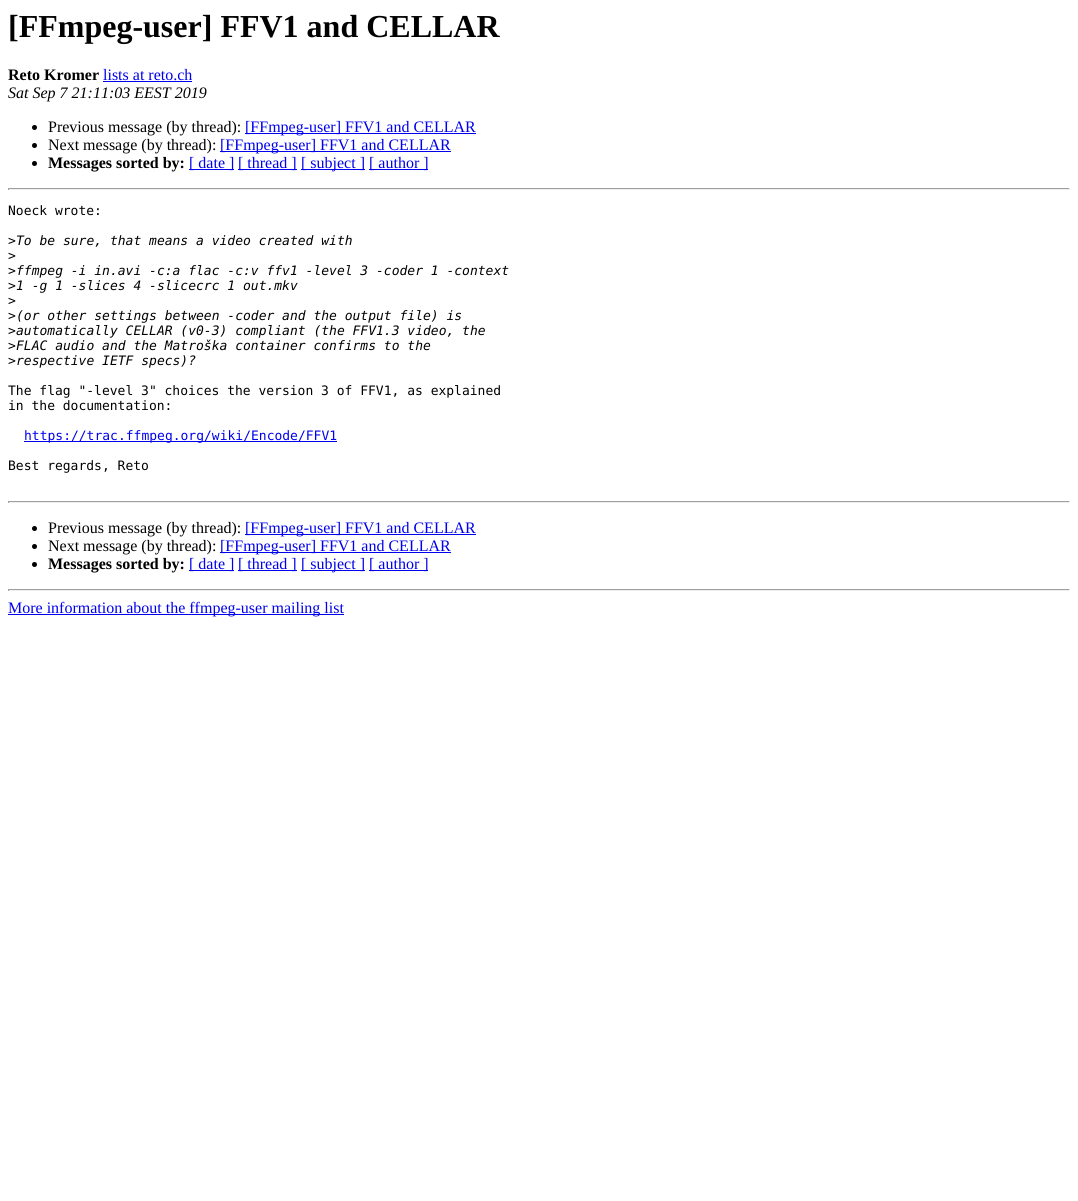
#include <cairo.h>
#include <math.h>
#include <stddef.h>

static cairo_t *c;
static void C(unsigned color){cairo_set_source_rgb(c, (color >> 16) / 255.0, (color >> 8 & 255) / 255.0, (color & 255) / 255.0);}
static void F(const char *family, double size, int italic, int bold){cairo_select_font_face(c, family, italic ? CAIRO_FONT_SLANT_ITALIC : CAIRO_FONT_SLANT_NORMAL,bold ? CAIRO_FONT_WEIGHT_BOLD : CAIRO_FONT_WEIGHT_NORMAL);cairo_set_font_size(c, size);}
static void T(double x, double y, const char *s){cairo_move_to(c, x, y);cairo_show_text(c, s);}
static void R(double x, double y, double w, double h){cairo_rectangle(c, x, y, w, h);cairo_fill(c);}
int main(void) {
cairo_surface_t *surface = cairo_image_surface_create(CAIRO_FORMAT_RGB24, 1078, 1201);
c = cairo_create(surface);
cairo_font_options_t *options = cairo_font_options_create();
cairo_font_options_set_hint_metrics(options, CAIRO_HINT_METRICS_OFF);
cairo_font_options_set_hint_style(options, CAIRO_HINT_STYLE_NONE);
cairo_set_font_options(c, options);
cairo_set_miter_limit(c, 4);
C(0xffffff);
cairo_paint(c);
F("Liberation Serif",32,0,1);
C(0x000000);
T(8,37,"[FFmpeg-user] FFV1 and CELLAR");
F("Liberation Serif",16,0,1);
T(8,80,"Reto Kromer");
F("Liberation Serif",16,0,0);
C(0x0000ee);
T(103,80,"lists at reto.ch");
R(103,81,89,1);
F("Liberation Serif",16,1,0);
C(0x000000);
T(8,98,"Sat Sep 7 21:11:03 EEST 2019");
cairo_new_path(c);
cairo_arc(c,34.5,127.5,2.5,0,2 * M_PI);
cairo_fill(c);
F("Liberation Serif",16,0,0);
T(48,132,"Previous message (by thread):");
C(0x0000ee);
R(245,133,231,1);
T(245,132,"[FFmpeg-user] FFV1 and CELLAR");
C(0x000000);
cairo_new_path(c);
cairo_arc(c,34.5,145.5,2.5,0,2 * M_PI);
cairo_fill(c);
T(48,150,"Next message (by thread):");
C(0x0000ee);
R(220,151,231,1);
T(220,150,"[FFmpeg-user] FFV1 and CELLAR");
C(0x000000);
cairo_new_path(c);
cairo_arc(c,34.5,163.5,2.5,0,2 * M_PI);
cairo_fill(c);
F("Liberation Serif",16,0,1);
T(48,168,"Messages sorted by:");
C(0x0000ee);
R(189,169,45,1);
F("Liberation Serif",16,0,0);
T(189,168,"[ date ]");
R(238,169,59,1);
T(238,168,"[ thread ]");
R(301,169,64,1);
T(301,168,"[ subject ]");
R(369,169,59,1);
T(369,168,"[ author ]");
C(0x9f9f9f);
R(8,188,1062,1);
C(0xeeeeee);
R(1069,188,1,2);
R(8,189,1062,1);
C(0x9f9f9f);
R(8,188,1,2);
F("DejaVu Sans Mono",13,0,0);
C(0x000000);
T(8,215,"Noeck wrote:");
T(8,245,">");
F("DejaVu Sans Mono",13,1,0);
T(16,245,"To be sure, that means a video created with");
F("DejaVu Sans Mono",13,0,0);
T(8,260,">");
T(8,275,">");
F("DejaVu Sans Mono",13,1,0);
T(16,275,"ffmpeg -i in.avi -c:a flac -c:v ffv1 -level 3 -coder 1 -context");
F("DejaVu Sans Mono",13,0,0);
T(8,290,">");
F("DejaVu Sans Mono",13,1,0);
T(16,290,"1 -g 1 -slices 4 -slicecrc 1 out.mkv");
F("DejaVu Sans Mono",13,0,0);
T(8,305,">");
T(8,320,">");
F("DejaVu Sans Mono",13,1,0);
T(16,320,"(or other settings between -coder and the output file) is");
F("DejaVu Sans Mono",13,0,0);
T(8,335,">");
F("DejaVu Sans Mono",13,1,0);
T(16,335,"automatically CELLAR (v0-3) compliant (the FFV1.3 video, the");
F("DejaVu Sans Mono",13,0,0);
T(8,350,">");
F("DejaVu Sans Mono",13,1,0);
T(16,350,"FLAC audio and the Matroška container confirms to the");
F("DejaVu Sans Mono",13,0,0);
T(8,365,">");
F("DejaVu Sans Mono",13,1,0);
T(16,365,"respective IETF specs)?");
F("DejaVu Sans Mono",13,0,0);
T(8,395,"The flag \"-level 3\" choices the version 3 of FFV1, as explained");
T(8,410,"in the documentation:");
C(0x0000ee);
R(24,441,313,1);
T(24,440,"https://trac.ffmpeg.org/wiki/Encode/FFV1");
C(0x000000);
T(8,470,"Best regards, Reto");
C(0x9f9f9f);
R(8,501,1062,1);
C(0xeeeeee);
R(1069,501,1,2);
R(8,502,1062,1);
C(0x9f9f9f);
R(8,501,1,2);
C(0x000000);
cairo_new_path(c);
cairo_arc(c,34.5,528.5,2.5,0,2 * M_PI);
cairo_fill(c);
F("Liberation Serif",16,0,0);
T(48,533,"Previous message (by thread):");
C(0x0000ee);
R(245,534,231,1);
T(245,533,"[FFmpeg-user] FFV1 and CELLAR");
C(0x000000);
cairo_new_path(c);
cairo_arc(c,34.5,546.5,2.5,0,2 * M_PI);
cairo_fill(c);
T(48,551,"Next message (by thread):");
C(0x0000ee);
R(220,552,231,1);
T(220,551,"[FFmpeg-user] FFV1 and CELLAR");
C(0x000000);
cairo_new_path(c);
cairo_arc(c,34.5,564.5,2.5,0,2 * M_PI);
cairo_fill(c);
F("Liberation Serif",16,0,1);
T(48,569,"Messages sorted by:");
C(0x0000ee);
R(189,570,45,1);
F("Liberation Serif",16,0,0);
T(189,569,"[ date ]");
R(238,570,59,1);
T(238,569,"[ thread ]");
R(301,570,64,1);
T(301,569,"[ subject ]");
R(369,570,59,1);
T(369,569,"[ author ]");
C(0x9f9f9f);
R(8,589,1062,1);
C(0xeeeeee);
R(1069,589,1,2);
R(8,590,1062,1);
C(0x9f9f9f);
R(8,589,1,2);
C(0x0000ee);
R(8,614,336,1);
T(8,613,"More information about the ffmpeg-user mailing list");
cairo_surface_write_to_png(surface, "o.png");
cairo_font_options_destroy(options);
cairo_destroy(c);
cairo_surface_destroy(surface);
return 0;
}
